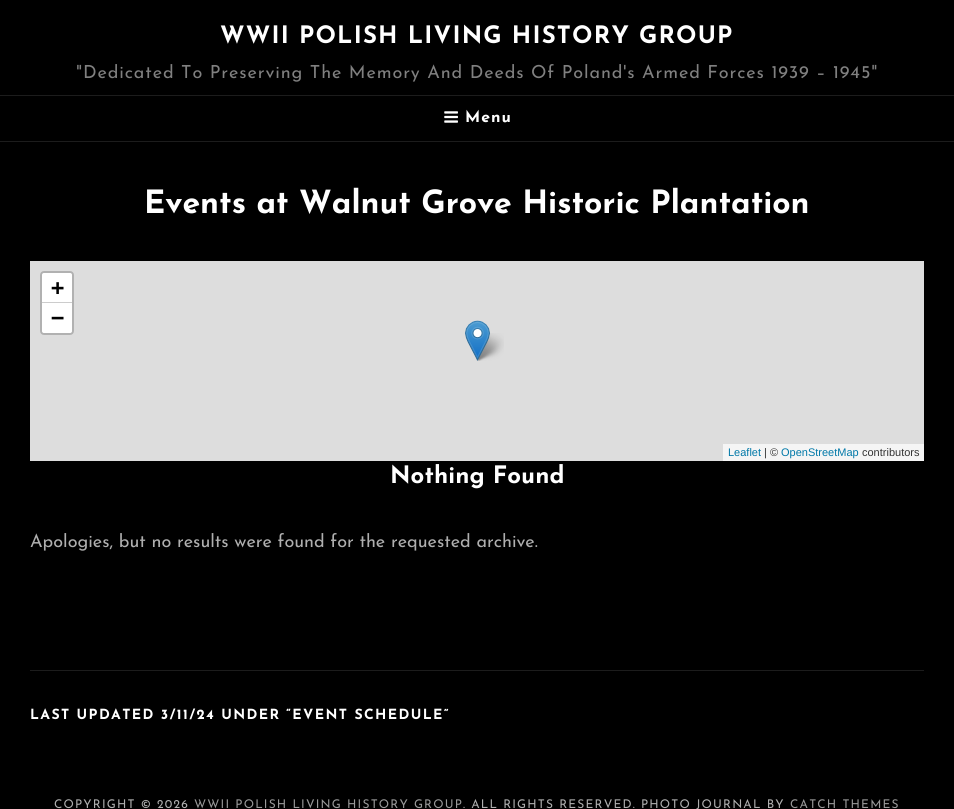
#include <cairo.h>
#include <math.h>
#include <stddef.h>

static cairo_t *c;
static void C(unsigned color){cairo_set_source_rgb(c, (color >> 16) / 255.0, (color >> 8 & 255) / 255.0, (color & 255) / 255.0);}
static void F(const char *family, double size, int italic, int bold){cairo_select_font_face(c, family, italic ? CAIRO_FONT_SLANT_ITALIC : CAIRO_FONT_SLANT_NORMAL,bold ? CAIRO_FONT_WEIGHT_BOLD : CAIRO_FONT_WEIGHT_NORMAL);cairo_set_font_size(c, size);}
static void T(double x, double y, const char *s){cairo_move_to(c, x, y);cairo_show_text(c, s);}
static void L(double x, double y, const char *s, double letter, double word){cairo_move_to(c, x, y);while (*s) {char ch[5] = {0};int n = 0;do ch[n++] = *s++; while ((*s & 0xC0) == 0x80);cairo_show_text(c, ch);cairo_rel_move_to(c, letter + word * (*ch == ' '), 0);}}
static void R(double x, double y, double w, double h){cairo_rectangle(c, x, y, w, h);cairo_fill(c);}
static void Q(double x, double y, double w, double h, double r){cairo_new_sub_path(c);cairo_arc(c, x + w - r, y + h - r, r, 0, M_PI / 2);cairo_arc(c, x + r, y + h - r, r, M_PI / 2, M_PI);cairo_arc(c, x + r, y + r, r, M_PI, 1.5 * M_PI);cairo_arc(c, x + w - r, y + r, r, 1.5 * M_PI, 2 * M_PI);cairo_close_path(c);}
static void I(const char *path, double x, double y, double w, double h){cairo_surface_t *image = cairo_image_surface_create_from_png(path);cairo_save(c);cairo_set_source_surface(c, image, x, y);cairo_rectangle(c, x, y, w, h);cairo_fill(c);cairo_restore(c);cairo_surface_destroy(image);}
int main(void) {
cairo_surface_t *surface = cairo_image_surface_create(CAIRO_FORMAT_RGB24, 954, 809);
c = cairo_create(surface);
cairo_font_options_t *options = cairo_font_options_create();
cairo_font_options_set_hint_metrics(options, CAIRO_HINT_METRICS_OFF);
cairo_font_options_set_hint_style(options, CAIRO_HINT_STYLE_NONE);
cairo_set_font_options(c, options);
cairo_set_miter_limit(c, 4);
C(0x000000);
cairo_paint(c);
F("Josefin Sans",24,0,1);
C(0xffffff);
L(220,43,"WWII POLISH LIVING HISTORY GROUP",1.2,0);
F("Josefin Sans",18,0,0);
C(0x808080);
L(76,78,"\"Dedicated To Preserving The Memory And Deeds Of Poland's Armed Forces 1939 – 1945\"",.9,0);
C(0x1c1c1c);
R(0,95,954,1);
R(0,141,954,1);
I("1.png",444,111,14,12);
F("Josefin Sans",16,0,1);
C(0xffffff);
L(465,122,"Menu",1,0);
F("Josefin Sans",32,0,1);
T(144,213,"Events at Walnut Grove Historic Plantation");
C(0xdddddd);
R(30,261,894,200);
Q(41,272,32,62,3);
C(0xb1b1b1);
cairo_stroke(c);
C(0xffffff);
cairo_new_path(c);
cairo_move_to(c,44,273);
cairo_line_to(c,70,273);
cairo_curve_to(c,71,273,72,274,72,275);
cairo_line_to(c,72,303);
cairo_line_to(c,42,303);
cairo_line_to(c,42,275);
cairo_curve_to(c,42,274,43,273,44,273);
cairo_close_path(c);
cairo_fill(c);
C(0xcccccc);
R(42,302,30,1);
F("DejaVu Sans Mono",22,0,1);
C(0x000000);
T(51,295,"+");
C(0xffffff);
cairo_new_path(c);
cairo_move_to(c,42,303);
cairo_line_to(c,72,303);
cairo_line_to(c,72,331);
cairo_curve_to(c,72,332,71,333,70,333);
cairo_line_to(c,44,333);
cairo_curve_to(c,43,333,42,332,42,331);
cairo_close_path(c);
cairo_fill(c);
C(0x000000);
T(51,325,"−");
C(0xf5f5f5);
R(723,444,201,17);
F("Liberation Sans",11,0,0);
C(0x0078a8);
T(728,456,"Leaflet");
C(0x333333);
T(764,456,"| ©");
C(0x0078a8);
T(781,456,"OpenStreetMap");
C(0x333333);
T(862,456,"contributors");
I("3.png",475,333,29,28);
I("2.png",465,320,25,41);
F("Josefin Sans",24,0,1);
C(0xffffff);
L(390,483,"Nothing Found",.1,0);
F("Josefin Sans",18,0,0);
C(0xafafaf);
T(30,547,"Apologies, but no results were found for the requested archive.");
C(0x1c1c1c);
R(30,670,894,1);
F("Josefin Sans",14,0,1);
C(0xffffff);
L(30,719,"LAST UPDATED 3/11/24 UNDER “EVENT SCHEDULE”",1.4,0);
F("Josefin Sans",12,0,0);
C(0xafafaf);
L(54,808,"COPYRIGHT © 2026",1.2,0);
C(0x999999);
L(194,808,"WWII POLISH LIVING HISTORY GROUP",1.2,0);
C(0xafafaf);
L(463,808,". ALL RIGHTS RESERVED. PHOTO JOURNAL BY",1.2,0);
C(0x999999);
L(790,808,"CATCH THEMES",1.2,0);
cairo_surface_write_to_png(surface, "o.png");
cairo_font_options_destroy(options);
cairo_destroy(c);
cairo_surface_destroy(surface);
return 0;
}
